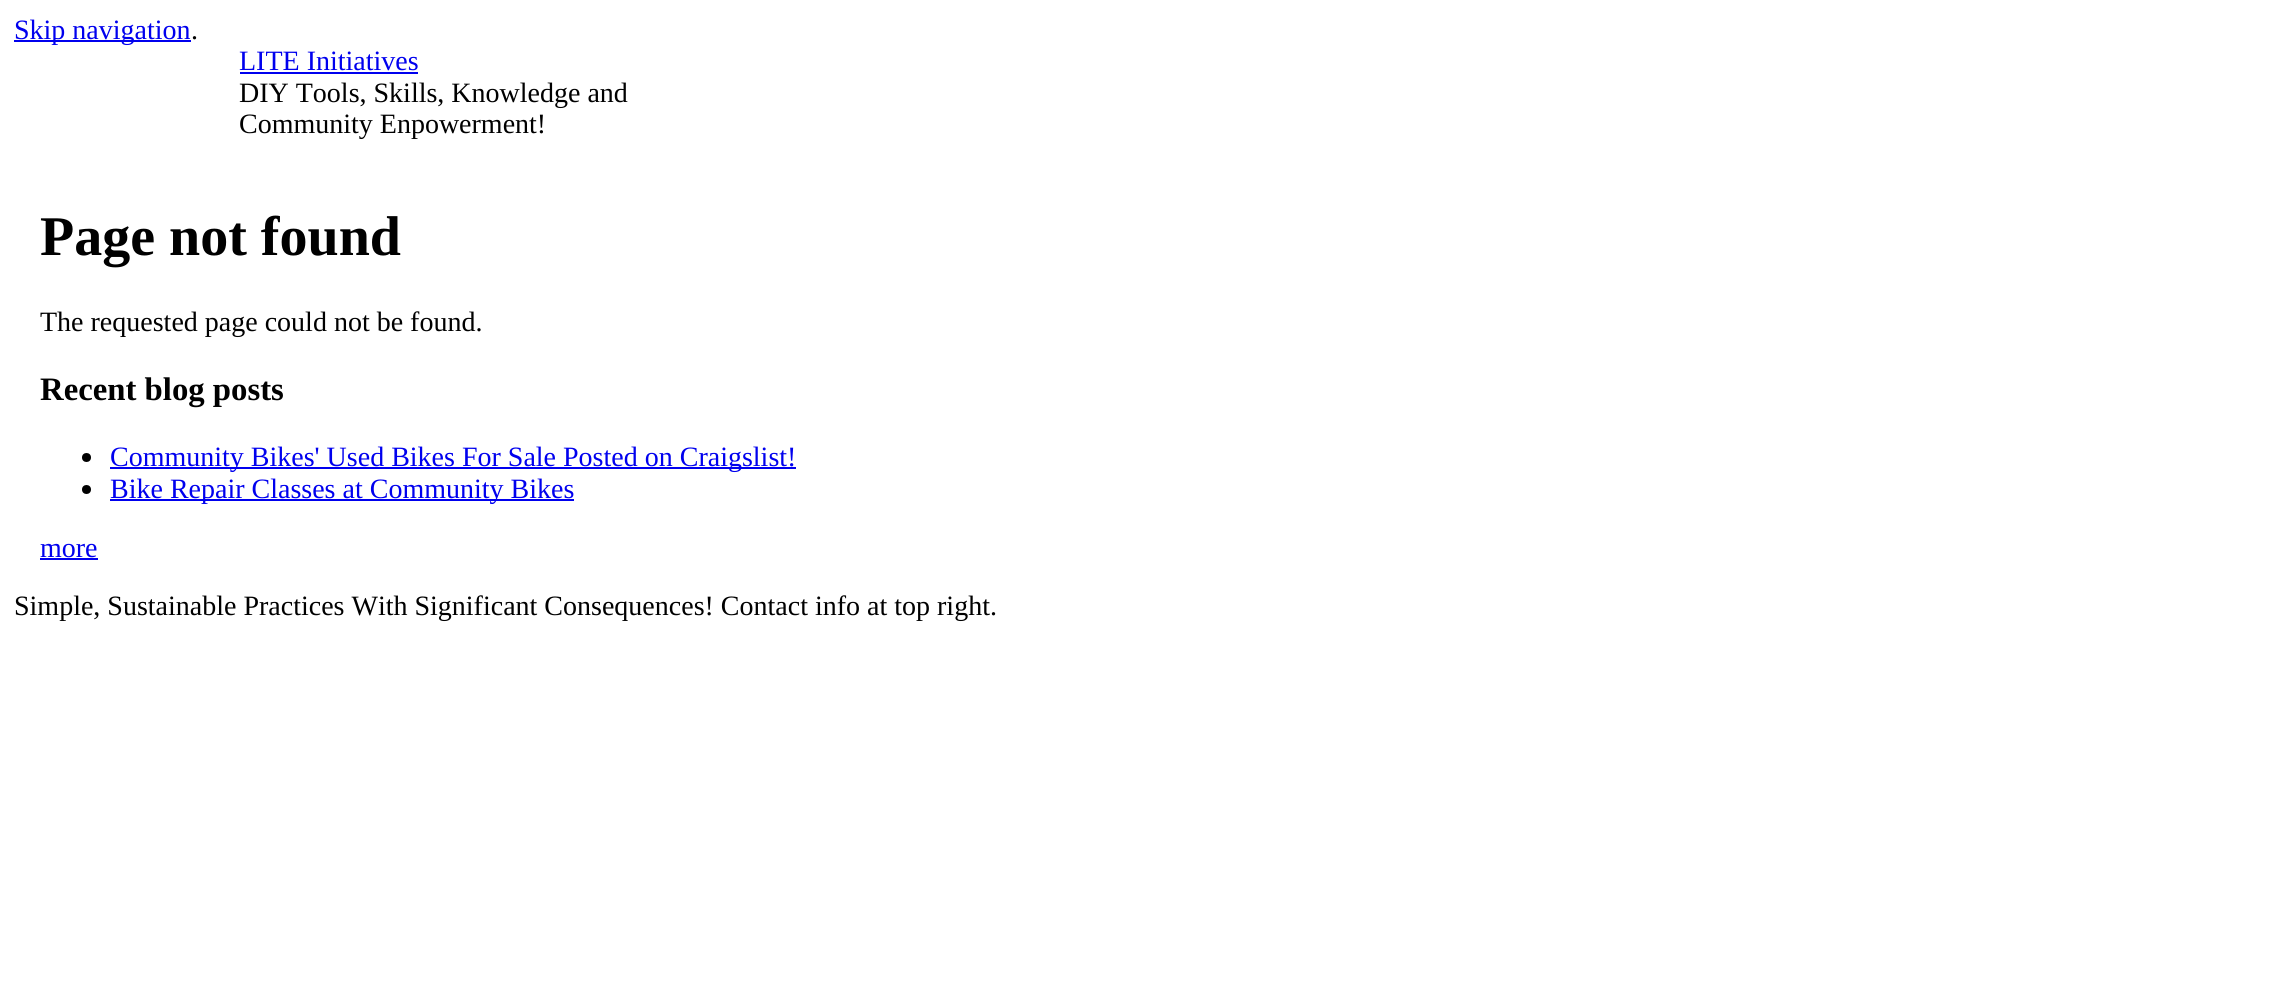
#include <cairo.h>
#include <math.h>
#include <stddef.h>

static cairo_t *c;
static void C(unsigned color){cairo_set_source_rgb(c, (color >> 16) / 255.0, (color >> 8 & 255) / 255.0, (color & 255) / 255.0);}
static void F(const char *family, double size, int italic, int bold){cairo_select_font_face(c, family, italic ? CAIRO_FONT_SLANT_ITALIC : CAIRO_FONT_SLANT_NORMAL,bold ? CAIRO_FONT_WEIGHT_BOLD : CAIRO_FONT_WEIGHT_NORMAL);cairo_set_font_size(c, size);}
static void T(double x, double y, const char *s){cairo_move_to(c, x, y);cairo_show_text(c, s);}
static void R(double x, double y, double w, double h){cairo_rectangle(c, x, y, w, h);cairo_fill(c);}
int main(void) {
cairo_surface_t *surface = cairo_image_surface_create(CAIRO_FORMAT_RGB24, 2281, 999);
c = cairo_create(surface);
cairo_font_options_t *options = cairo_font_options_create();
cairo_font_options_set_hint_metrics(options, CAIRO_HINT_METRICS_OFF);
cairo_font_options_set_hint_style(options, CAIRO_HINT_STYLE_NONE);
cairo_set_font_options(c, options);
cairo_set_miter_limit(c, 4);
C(0xffffff);
cairo_paint(c);
C(0x0000ee);
R(14,40,177,2);
F("Liberation Serif",28,0,0);
T(14,39,"Skip navigation");
C(0x000000);
T(191,39,".");
C(0x0000ee);
T(239,70,"LITE Initiatives");
R(240,72,178,2);
C(0x000000);
T(239,102,"DIY Tools, Skills, Knowledge and");
T(239,133,"Community Enpowerment!");
F("Liberation Serif",56,0,1);
T(40,255,"Page not found");
F("Liberation Serif",28,0,0);
T(40,331,"The requested page could not be found.");
F("Liberation Serif",32.75,0,1);
T(40,400,"Recent blog posts");
cairo_new_path(c);
cairo_arc(c,86.5,457.5,4.5,0,2 * M_PI);
cairo_fill(c);
C(0x0000ee);
R(110,467,686,2);
F("Liberation Serif",28,0,0);
T(110,466,"Community Bikes' Used Bikes For Sale Posted on Craigslist!");
C(0x000000);
cairo_new_path(c);
cairo_arc(c,86.5,489.5,4.5,0,2 * M_PI);
cairo_fill(c);
C(0x0000ee);
R(110,499,464,2);
T(110,498,"Bike Repair Classes at Community Bikes");
T(40,557,"more");
R(40,558,58,2);
C(0x000000);
T(14,615,"Simple, Sustainable Practices With Significant Consequences! Contact info at top right.");
cairo_surface_write_to_png(surface, "o.png");
cairo_font_options_destroy(options);
cairo_destroy(c);
cairo_surface_destroy(surface);
return 0;
}
